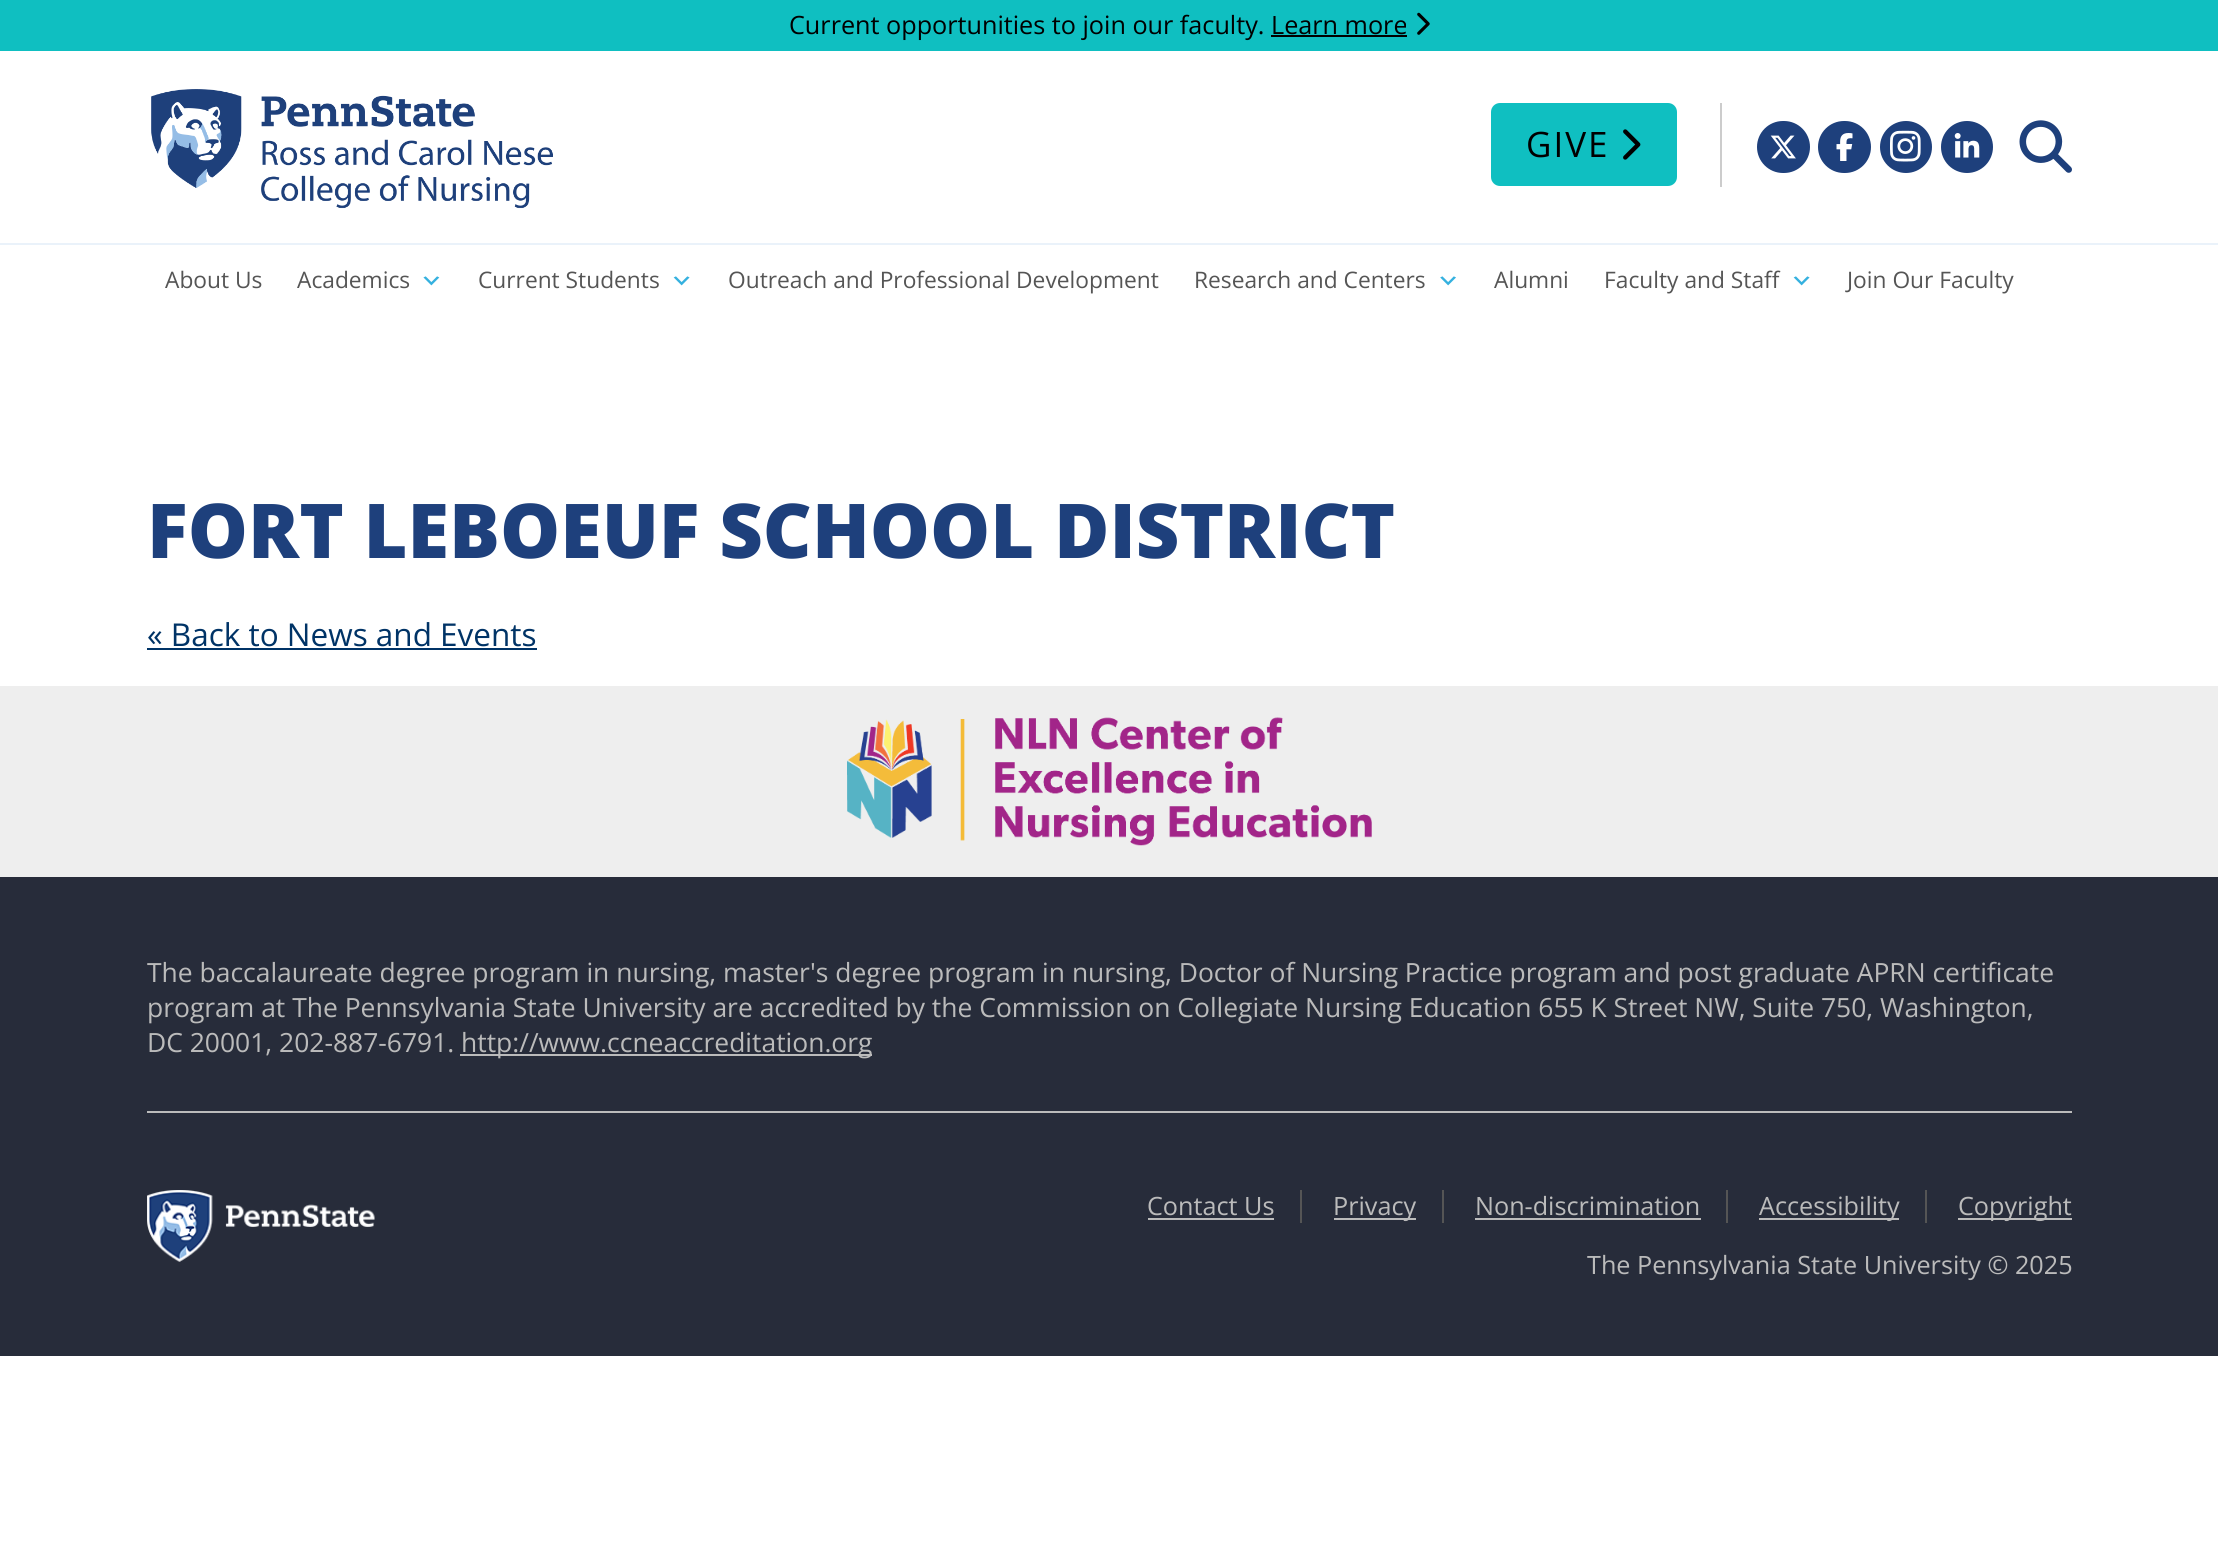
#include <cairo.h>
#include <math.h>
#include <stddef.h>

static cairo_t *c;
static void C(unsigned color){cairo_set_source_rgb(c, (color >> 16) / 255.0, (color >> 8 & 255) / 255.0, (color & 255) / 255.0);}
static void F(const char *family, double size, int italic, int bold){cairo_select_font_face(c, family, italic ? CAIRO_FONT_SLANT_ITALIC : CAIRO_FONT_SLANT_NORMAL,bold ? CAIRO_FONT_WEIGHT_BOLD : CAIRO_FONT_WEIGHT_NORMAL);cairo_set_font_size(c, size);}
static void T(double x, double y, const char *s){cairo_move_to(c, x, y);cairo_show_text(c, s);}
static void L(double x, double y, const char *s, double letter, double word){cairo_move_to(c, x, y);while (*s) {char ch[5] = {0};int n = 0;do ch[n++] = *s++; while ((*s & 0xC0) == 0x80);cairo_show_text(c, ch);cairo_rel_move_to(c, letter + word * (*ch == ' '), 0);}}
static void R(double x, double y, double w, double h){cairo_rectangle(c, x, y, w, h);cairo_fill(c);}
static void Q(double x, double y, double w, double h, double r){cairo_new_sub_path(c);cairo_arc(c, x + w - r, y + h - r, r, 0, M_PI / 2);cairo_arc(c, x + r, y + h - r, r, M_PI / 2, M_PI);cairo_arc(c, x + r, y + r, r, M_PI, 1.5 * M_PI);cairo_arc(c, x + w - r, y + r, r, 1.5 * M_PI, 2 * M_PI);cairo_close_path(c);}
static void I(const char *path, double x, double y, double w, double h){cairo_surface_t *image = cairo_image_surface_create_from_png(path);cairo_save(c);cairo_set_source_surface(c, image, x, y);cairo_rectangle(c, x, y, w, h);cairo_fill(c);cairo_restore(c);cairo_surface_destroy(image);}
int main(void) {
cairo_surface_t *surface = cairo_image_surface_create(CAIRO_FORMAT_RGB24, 2218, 1559);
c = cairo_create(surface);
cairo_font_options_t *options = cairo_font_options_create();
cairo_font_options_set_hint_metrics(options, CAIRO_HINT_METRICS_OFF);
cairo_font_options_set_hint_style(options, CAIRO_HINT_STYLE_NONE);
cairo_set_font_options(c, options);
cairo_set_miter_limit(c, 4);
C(0xffffff);
cairo_paint(c);
C(0x0fbfc1);
R(0,0,2218,51);
F("Open Sans",25.2,0,0);
C(0x000000);
T(789,34,"Current opportunities to join our faculty. Learn more");
I("1.png",1417,12,13,23);
R(1271,35,136,2);
I("2.png",151,89,402,120);
C(0x0fbfc1);
Q(1491,103,186,83,9);
cairo_fill(c);
F("Open Sans",35,0,0);
C(0x000000);
L(1526,157,"GIVE",2,0);
I("3.png",1623,129,18,31);
C(0xcccccc);
R(1720,103,2,84);
C(0x1e407c);
Q(1757,121,53,52,26);
cairo_fill(c);
I("4.png",1770,135,26,24);
Q(1818,121,53,52,26);
cairo_fill(c);
I("5.png",1836,133,17,28);
cairo_arc(c,1906,147,26,0,2 * M_PI);
cairo_fill(c);
I("6.png",1890,130,31,32);
cairo_arc(c,1967,147,26,0,2 * M_PI);
cairo_fill(c);
I("7.png",1954,133,26,25);
I("8.png",2019,120,53,53);
C(0xeaf2fa);
R(0,243,2218,2);
F("Open Sans",22.75,0,0);
C(0x555555);
T(165,288,"About Us");
T(297,288,"Academics");
I("9.png",423,276,17,10);
T(478,288,"Current Students");
I("10.png",673,276,17,10);
T(728,288,"Outreach and Professional Development");
T(1194,288,"Research and Centers");
I("11.png",1440,276,16,10);
T(1494,288,"Alumni");
T(1604,288,"Faculty and Staff");
I("10.png",1793,276,17,10);
T(1847,288,"Join Our Faculty");
F("Open Sans ExtraBold",75.6,0,0);
C(0x1e407c);
T(147,558,"FORT LEBOEUF SCHOOL DISTRICT");
F("Open Sans",31.5,0,0);
C(0x003366);
T(147,646,"« Back to News and Events");
R(147,648,390,2);
C(0xeeeeee);
R(0,686,2218,191);
I("12.png",847,717,525,129);
C(0x272c3a);
R(0,877,2218,479);
C(0xbbbbbb);
R(147,1111,1925,2);
F("Open Sans",26.45,0,0);
T(147,982,"The baccalaureate degree program in nursing, master's degree program in nursing, Doctor of Nursing Practice program and post graduate APRN certificate");
T(147,1017,"program at The Pennsylvania State University are accredited by the Commission on Collegiate Nursing Education 655 K Street NW, Suite 750, Washington,");
T(147,1052,"DC 20001, 202-887-6791.");
R(460,1054,412,2);
T(461,1052,"http://www.ccneaccreditation.org");
I("13.png",147,1190,228,72);
F("Open Sans",25.2,0,0);
T(1147,1215,"Contact Us");
C(0x555555);
R(1300,1190,2,33);
C(0xbbbbbb);
R(1148,1218,126,2);
R(1334,1218,82,2);
T(1333,1215,"Privacy");
C(0x555555);
R(1442,1190,2,33);
C(0xbbbbbb);
T(1475,1215,"Non-discrimination");
C(0x555555);
R(1726,1190,2,33);
C(0xbbbbbb);
R(1475,1218,226,2);
R(1759,1218,140,2);
T(1759,1215,"Accessibility");
C(0x555555);
R(1925,1190,2,33);
C(0xbbbbbb);
R(1958,1218,114,2);
T(1958,1215,"Copyright");
T(1587,1274,"The Pennsylvania State University © 2025");
cairo_surface_write_to_png(surface, "o.png");
cairo_font_options_destroy(options);
cairo_destroy(c);
cairo_surface_destroy(surface);
return 0;
}
